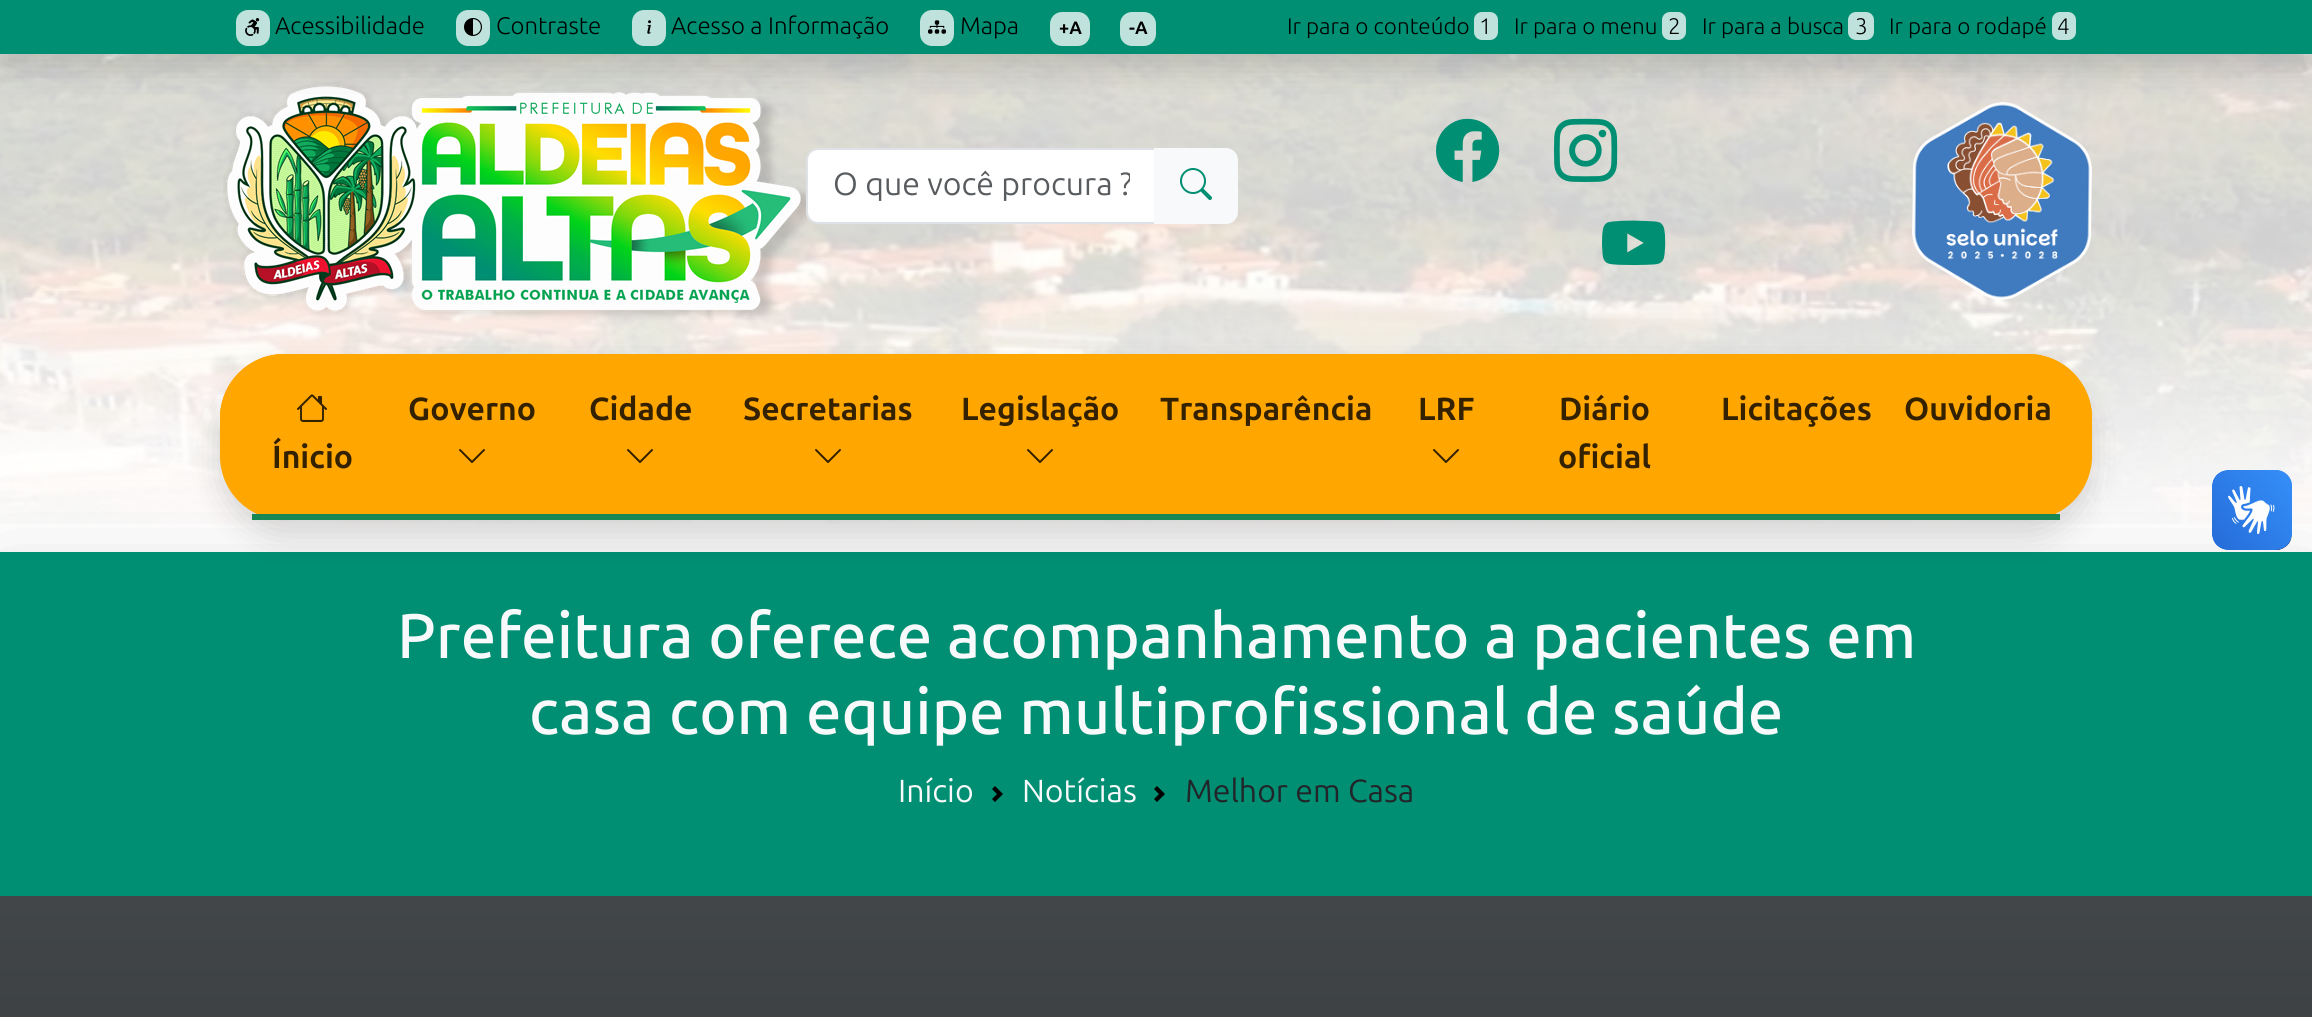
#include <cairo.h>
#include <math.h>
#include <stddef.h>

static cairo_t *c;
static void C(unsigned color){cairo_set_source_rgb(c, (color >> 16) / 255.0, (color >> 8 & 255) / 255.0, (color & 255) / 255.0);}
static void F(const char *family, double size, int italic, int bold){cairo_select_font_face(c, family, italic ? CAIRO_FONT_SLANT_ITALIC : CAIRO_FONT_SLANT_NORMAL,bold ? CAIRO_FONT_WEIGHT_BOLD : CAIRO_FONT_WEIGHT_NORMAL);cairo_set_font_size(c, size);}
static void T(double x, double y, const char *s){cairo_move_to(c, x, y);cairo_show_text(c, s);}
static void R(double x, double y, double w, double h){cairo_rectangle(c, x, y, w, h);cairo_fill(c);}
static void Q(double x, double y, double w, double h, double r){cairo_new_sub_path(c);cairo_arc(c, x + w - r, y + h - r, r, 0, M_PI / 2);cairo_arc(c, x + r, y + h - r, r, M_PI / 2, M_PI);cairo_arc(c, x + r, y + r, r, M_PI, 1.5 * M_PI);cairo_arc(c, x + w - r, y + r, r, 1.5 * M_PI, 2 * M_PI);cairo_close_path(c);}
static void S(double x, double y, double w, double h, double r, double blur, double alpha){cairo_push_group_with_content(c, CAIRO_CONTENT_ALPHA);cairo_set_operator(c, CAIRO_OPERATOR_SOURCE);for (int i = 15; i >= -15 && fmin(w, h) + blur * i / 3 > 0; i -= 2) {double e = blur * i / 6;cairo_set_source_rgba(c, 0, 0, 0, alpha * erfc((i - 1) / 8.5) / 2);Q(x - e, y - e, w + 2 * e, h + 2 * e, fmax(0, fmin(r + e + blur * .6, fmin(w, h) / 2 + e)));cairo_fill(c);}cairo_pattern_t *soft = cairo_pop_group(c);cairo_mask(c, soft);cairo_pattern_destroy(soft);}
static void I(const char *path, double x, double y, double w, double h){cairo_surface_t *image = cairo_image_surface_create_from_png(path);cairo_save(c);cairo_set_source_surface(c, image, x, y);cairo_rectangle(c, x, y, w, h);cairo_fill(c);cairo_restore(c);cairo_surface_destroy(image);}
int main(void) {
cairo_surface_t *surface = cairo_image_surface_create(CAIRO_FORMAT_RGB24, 2312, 1017);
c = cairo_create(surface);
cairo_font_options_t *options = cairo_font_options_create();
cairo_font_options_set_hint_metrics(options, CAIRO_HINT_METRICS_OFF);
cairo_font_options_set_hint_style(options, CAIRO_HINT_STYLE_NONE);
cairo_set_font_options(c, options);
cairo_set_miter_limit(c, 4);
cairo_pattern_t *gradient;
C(0xffffff);
cairo_paint(c);
I("1.png",0,54,2312,470);
I("6.png",223,82,587,238);
I("8.png",1436,118,64,64);
I("9.png",1554,118,64,64);
I("11.png",1912,102,180,198);
C(0x000000);
S(0,16,2312,54,0,16,.15);
C(0x008f72);
R(0,0,2312,54);
C(0xbfe3dc);
Q(236,10,34,36,12);
cairo_fill(c);
I("2.png",245,18,15,18);
F("Ubuntu Sans Light",24,0,0);
C(0x000000);
T(275,34,"Acessibilidade");
C(0xbfe3dc);
Q(456,10,34,36,12);
cairo_fill(c);
I("3.png",464,18,18,18);
C(0x000000);
T(496,34,"Contraste");
C(0xbfe3dc);
Q(632,10,34,36,12);
cairo_fill(c);
I("4.png",647,20,4,14);
C(0x000000);
T(671,34,"Acesso a Informação");
C(0xbfe3dc);
Q(920,10,34,36,12);
cairo_fill(c);
I("5.png",928,20,18,14);
C(0x000000);
T(960,34,"Mapa");
C(0xbfe3dc);
Q(1050,12,40,34,12);
cairo_fill(c);
F("Ubuntu Sans",18,0,1);
C(0x000000);
T(1059,34,"+A");
C(0xbfe3dc);
Q(1120,12,36,34,12);
cairo_fill(c);
C(0x000000);
T(1129,34,"-A");
F("Ubuntu Sans Light",22.5,0,0);
T(1287,34,"Ir para o conteúdo");
C(0xbfe3dc);
Q(1474,12,24,28,8);
cairo_fill(c);
C(0x000000);
T(1479,34,"1");
T(1514,34,"Ir para o menu");
C(0xbfe3dc);
Q(1662,12,24,28,8);
cairo_fill(c);
C(0x000000);
T(1668,34,"2");
T(1702,34,"Ir para a busca");
C(0xbfe3dc);
Q(1848,12,26,28,8);
cairo_fill(c);
C(0x000000);
T(1855,34,"3");
T(1889,34,"Ir para o rodapé");
C(0xbfe3dc);
Q(2052,12,24,28,8);
cairo_fill(c);
C(0x000000);
T(2057,34,"4");
C(0xffffff);
cairo_new_path(c);
cairo_move_to(c,818,149);
cairo_line_to(c,1155,149);
cairo_line_to(c,1155,223);
cairo_line_to(c,818,223);
cairo_curve_to(c,812,223,807,218,807,212);
cairo_line_to(c,807,160);
cairo_curve_to(c,807,154,812,149,818,149);
cairo_close_path(c);
cairo_fill_preserve(c);
C(0xdee2e6);
cairo_stroke(c);
cairo_save(c);
cairo_rectangle(c,832,166,298,38);
cairo_clip(c);
F("Ubuntu Sans",32,0,0);
C(0x595c5f);
T(833,195,"O que você procura ?");
cairo_restore(c);
C(0xf8f9fa);
cairo_new_path(c);
cairo_move_to(c,1155,149);
cairo_line_to(c,1226,149);
cairo_curve_to(c,1232,149,1237,154,1237,160);
cairo_line_to(c,1237,212);
cairo_curve_to(c,1237,218,1232,223,1226,223);
cairo_line_to(c,1155,223);
cairo_close_path(c);
cairo_fill_preserve(c);
cairo_stroke(c);
I("7.png",1180,168,32,32);
I("10.png",1602,220,64,46);
C(0x000000);
S(0,584,2312,344,0,48,.18);
C(0x008f72);
R(0,552,2312,344);
C(0x000000);
S(220,370,1872,166,64,16,.15);
C(0xffa600);
Q(220,354,1872,166,64);
cairo_fill(c);
C(0x198754);
R(252,514,1808,6);
C(0xffa600);
Q(220,354,1872,160,64);
cairo_fill(c);
F("Ubuntu Sans",32,0,1);
C(0x332100);
T(408,420,"Governo");
I("12.png",459,449,26,14);
T(589,420,"Cidade");
I("12.png",627,449,26,14);
T(743,420,"Secretarias");
I("12.png",815,449,26,14);
T(961,420,"Legislação");
I("12.png",1027,449,26,14);
T(1160,420,"Transparência");
T(1418,420,"LRF");
I("12.png",1433,449,26,14);
T(1559,420,"Diário");
T(1558,468,"oficial");
T(1721,420,"Licitações");
T(1904,420,"Ouvidoria");
I("13.png",297,394,30,28);
T(272,468,"Ínicio");
I("14.png",2212,470,80,80);
I("15.png",2212,470,80,80);
F("Ubuntu Sans Medium",63.25,0,0);
C(0xf8f9fa);
T(397,658,"Prefeitura oferece acompanhamento a pacientes em");
T(529,734,"casa com equipe multiprofissional de saúde");
F("Ubuntu Sans",32,0,0);
T(898,802,"Início");
I("16.png",992,786,11,16);
T(1022,802,"Notícias");
I("16.png",1154,786,11,16);
C(0x212529);
T(1185,802,"Melhor em Casa");
gradient = cairo_pattern_create_linear(1156,896,1156,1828);
cairo_pattern_add_color_stop_rgba(gradient,0,0.259,0.275,0.286,1);
cairo_pattern_add_color_stop_rgba(gradient,1,0.129,0.145,0.161,1);
cairo_set_source(c,gradient);
cairo_pattern_destroy(gradient);
R(0,896,2312,121);
cairo_surface_write_to_png(surface, "o.png");
cairo_font_options_destroy(options);
cairo_destroy(c);
cairo_surface_destroy(surface);
return 0;
}
